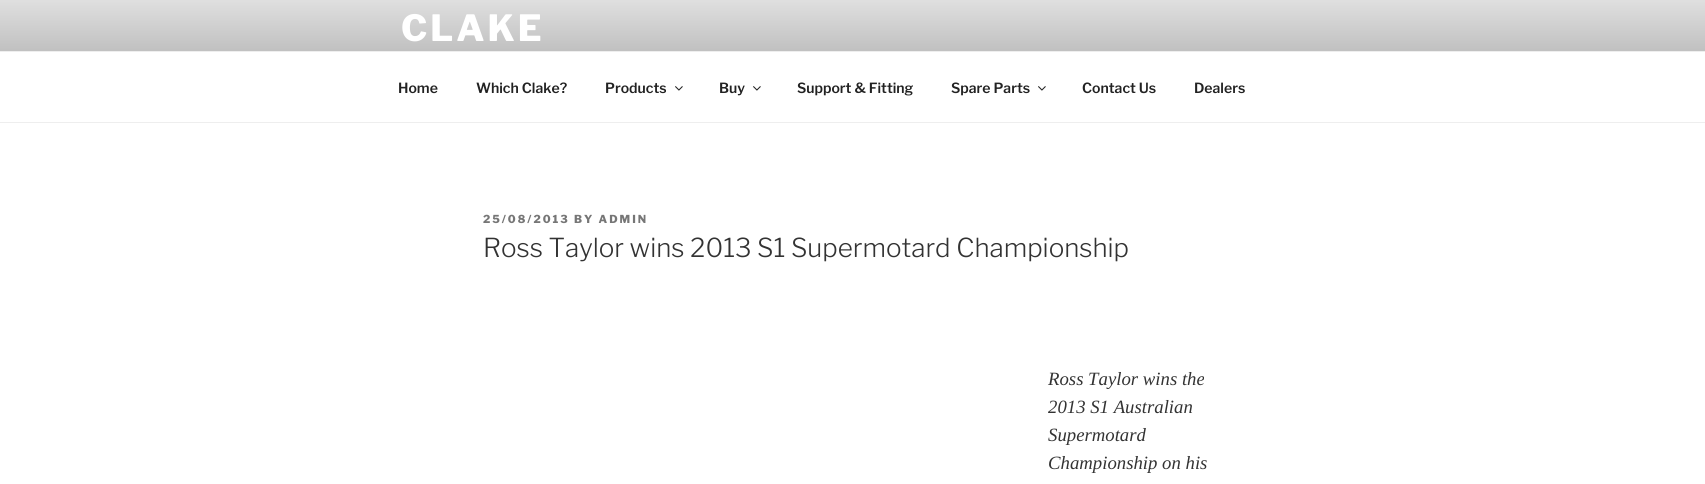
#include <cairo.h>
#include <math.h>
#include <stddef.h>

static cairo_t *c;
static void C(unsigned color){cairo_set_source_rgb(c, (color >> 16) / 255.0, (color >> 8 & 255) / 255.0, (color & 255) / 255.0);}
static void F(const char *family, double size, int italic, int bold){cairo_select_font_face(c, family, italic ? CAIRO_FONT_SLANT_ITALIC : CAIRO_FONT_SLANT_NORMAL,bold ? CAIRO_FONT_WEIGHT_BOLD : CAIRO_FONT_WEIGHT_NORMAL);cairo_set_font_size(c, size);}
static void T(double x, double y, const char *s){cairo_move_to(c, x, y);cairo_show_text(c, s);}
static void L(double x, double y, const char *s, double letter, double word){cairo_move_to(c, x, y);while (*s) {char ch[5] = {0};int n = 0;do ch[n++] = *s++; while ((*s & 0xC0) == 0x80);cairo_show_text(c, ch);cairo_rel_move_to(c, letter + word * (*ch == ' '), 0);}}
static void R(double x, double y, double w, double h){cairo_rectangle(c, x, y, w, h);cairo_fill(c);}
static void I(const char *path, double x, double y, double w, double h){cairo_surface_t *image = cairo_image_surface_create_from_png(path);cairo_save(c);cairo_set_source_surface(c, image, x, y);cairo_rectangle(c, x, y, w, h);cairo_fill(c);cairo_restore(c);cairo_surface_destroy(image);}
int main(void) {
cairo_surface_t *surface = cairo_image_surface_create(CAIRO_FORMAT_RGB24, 1705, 484);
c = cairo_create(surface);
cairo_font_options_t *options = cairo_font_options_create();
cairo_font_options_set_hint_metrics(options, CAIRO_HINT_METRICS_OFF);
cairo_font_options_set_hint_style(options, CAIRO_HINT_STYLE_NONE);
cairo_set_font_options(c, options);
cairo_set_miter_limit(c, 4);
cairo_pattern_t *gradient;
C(0xffffff);
cairo_paint(c);
gradient = cairo_pattern_create_linear(853,-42,853,123);
cairo_pattern_add_color_stop_rgba(gradient,0,0.976,0.976,0.976,1);
cairo_pattern_add_color_stop_rgba(gradient,.75,0.682,0.682,0.682,1);
cairo_pattern_add_color_stop_rgba(gradient,1,0.682,0.682,0.682,1);
cairo_set_source(c,gradient);
cairo_pattern_destroy(gradient);
R(0,0,1705,51);
F("Libre Franklin ExtraBold",36,0,0);
C(0xffffff);
L(401,41,"CLAKE",3,0);
C(0xeeeeee);
R(0,51,1705,1);
R(0,122,1705,1);
F("Libre Franklin SemiBold",14,0,0);
C(0x222222);
T(398,93,"Home");
T(476,93,"Which Clake?");
T(605,93,"Products");
I("1.png",675,86,8,5);
T(719,93,"Buy");
I("1.png",753,86,8,5);
T(797,93,"Support & Fitting");
T(951,93,"Spare Parts");
I("1.png",1038,86,8,5);
T(1082,93,"Contact Us");
T(1194,93,"Dealers");
F("Libre Franklin ExtraBold",11,0,0);
C(0x767676);
L(483,223,"25/08/2013 BY ADMIN",2,0);
F("Libre Franklin Light",26,0,0);
C(0x333333);
T(483,257,"Ross Taylor wins 2013 S1 Supermotard Championship");
F("Liberation Serif",18.75,1,0);
T(1048,385,"Ross Taylor wins the");
T(1048,413,"2013 S1 Australian");
T(1048,441,"Supermotard");
T(1048,469,"Championship on his");
cairo_surface_write_to_png(surface, "o.png");
cairo_font_options_destroy(options);
cairo_destroy(c);
cairo_surface_destroy(surface);
return 0;
}
